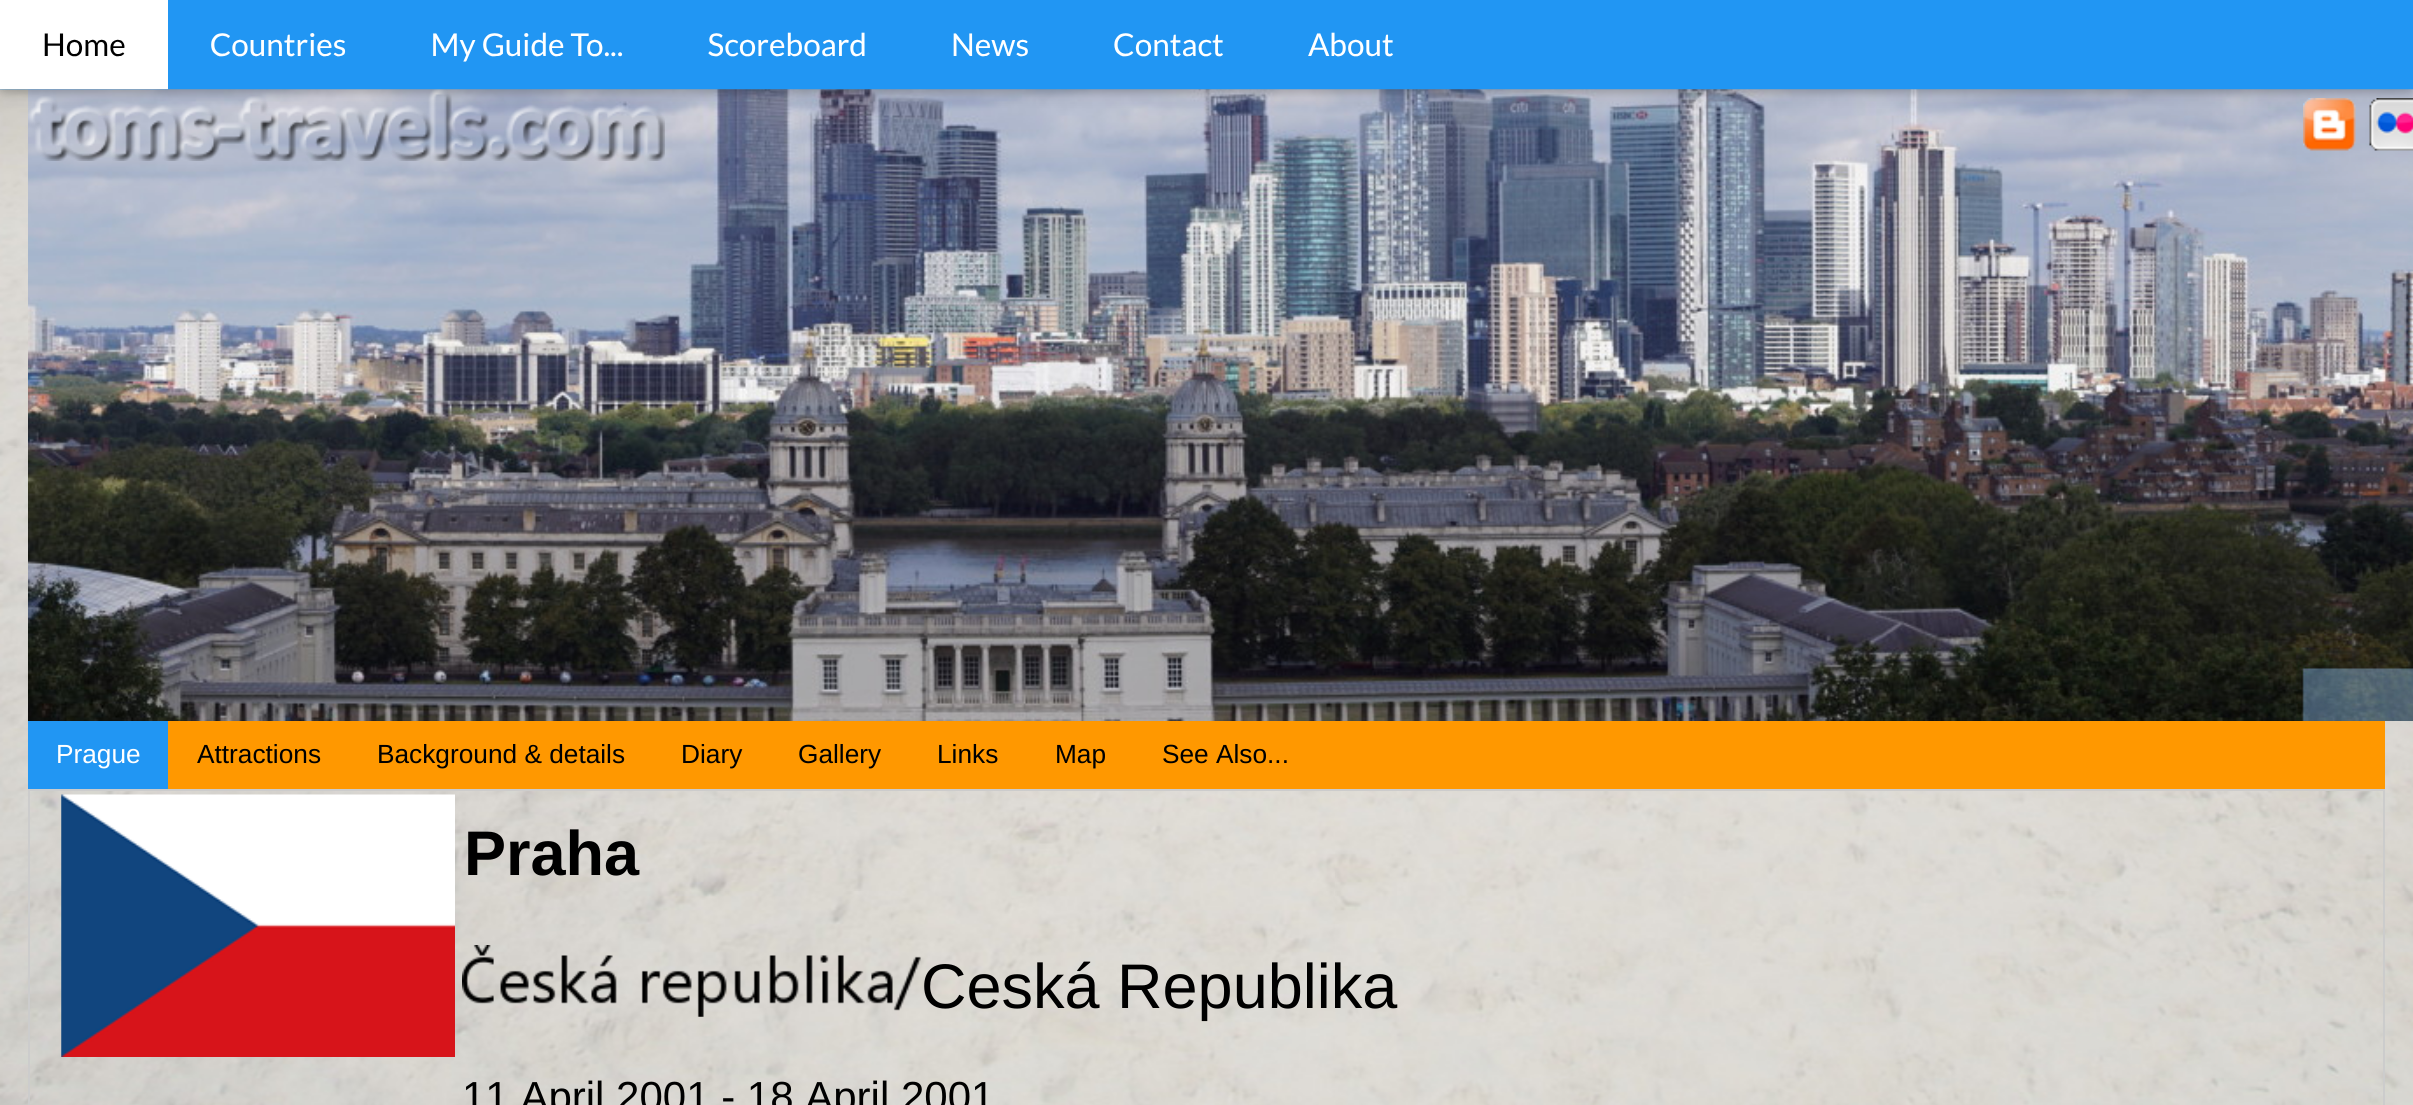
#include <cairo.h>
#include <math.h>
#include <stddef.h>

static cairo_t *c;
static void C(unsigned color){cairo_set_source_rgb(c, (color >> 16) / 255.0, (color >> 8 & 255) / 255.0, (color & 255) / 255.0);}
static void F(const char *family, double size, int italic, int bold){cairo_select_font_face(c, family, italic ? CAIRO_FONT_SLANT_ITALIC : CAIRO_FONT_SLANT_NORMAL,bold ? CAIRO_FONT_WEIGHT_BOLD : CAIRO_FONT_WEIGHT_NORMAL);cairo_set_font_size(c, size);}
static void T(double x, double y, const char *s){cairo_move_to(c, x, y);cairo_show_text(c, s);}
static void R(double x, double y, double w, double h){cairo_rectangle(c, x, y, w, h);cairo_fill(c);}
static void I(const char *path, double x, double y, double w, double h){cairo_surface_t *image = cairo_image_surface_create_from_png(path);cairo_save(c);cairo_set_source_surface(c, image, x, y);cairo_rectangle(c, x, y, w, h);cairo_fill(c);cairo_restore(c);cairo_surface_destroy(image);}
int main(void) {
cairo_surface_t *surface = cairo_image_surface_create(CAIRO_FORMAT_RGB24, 2413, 1105);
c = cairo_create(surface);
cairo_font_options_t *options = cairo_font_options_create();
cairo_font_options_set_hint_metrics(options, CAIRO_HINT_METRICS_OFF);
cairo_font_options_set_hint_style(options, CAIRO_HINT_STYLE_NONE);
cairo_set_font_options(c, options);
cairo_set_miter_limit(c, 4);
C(0xffffff);
cairo_paint(c);
I("1.png",0,89,2413,1016);
I("2.png",0,0,2413,721);
C(0xff9800);
R(168,721,2217,68);
C(0x2196f3);
R(28,721,140,68);
F("Liberation Sans",26.25,0,0);
C(0xffffff);
T(56,763,"Prague");
C(0x000000);
T(197,763,"Attractions");
T(377,763,"Background & details");
T(681,763,"Diary");
T(798,763,"Gallery");
T(937,763,"Links");
T(1055,763,"Map");
T(1162,763,"See Also...");
cairo_rectangle(c,29,790,2355,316);
C(0xcccccc);
cairo_stroke(c);
I("3.png",61,794,394,263);
F("Liberation Sans",63,0,1);
C(0x000000);
T(464,875,"Praha");
I("4.png",462,945,459,72);
F("Liberation Sans",63,0,0);
T(921,1008,"Ceská Republika");
F("Liberation Sans",42,0,0);
T(462,1111,"11 April 2001 - 18 April 2001");
cairo_surface_write_to_png(surface, "o.png");
cairo_font_options_destroy(options);
cairo_destroy(c);
cairo_surface_destroy(surface);
return 0;
}
